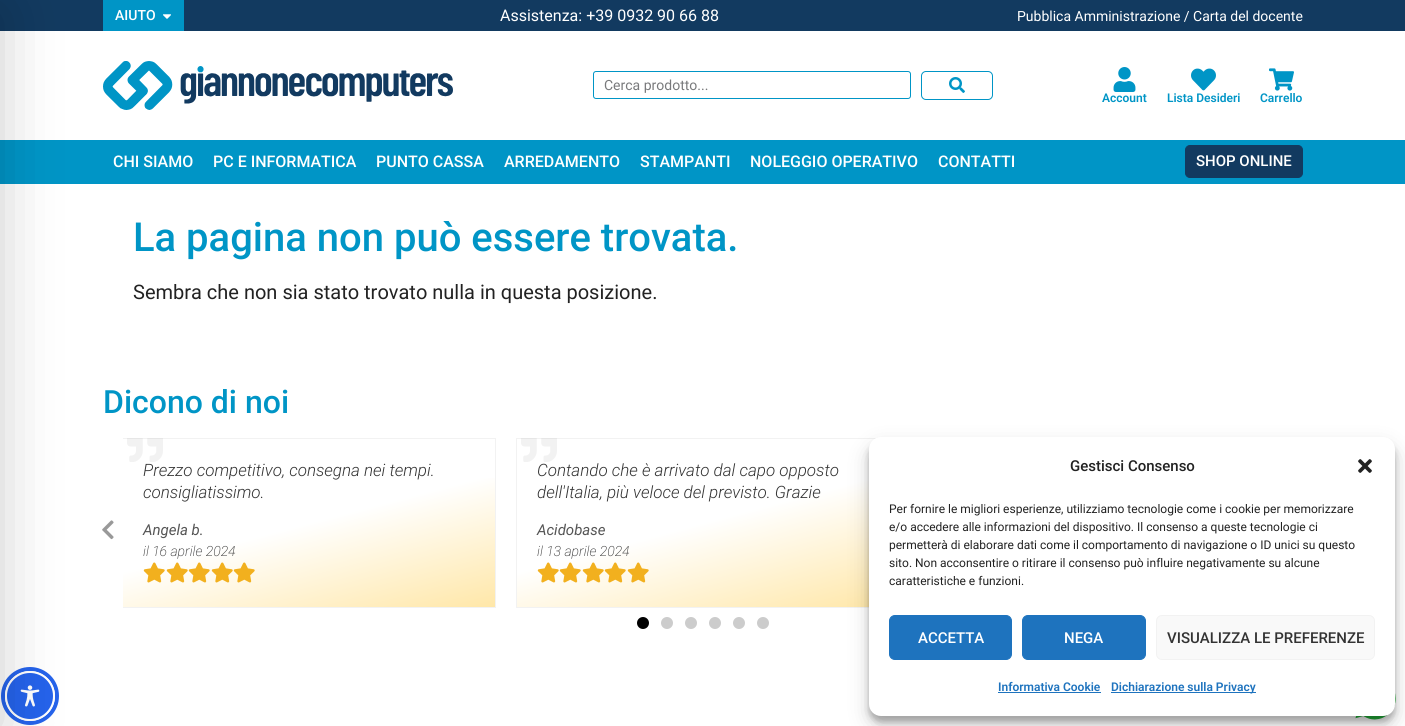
#include <cairo.h>
#include <math.h>
#include <stddef.h>

static cairo_t *c;
static void C(unsigned color){cairo_set_source_rgb(c, (color >> 16) / 255.0, (color >> 8 & 255) / 255.0, (color & 255) / 255.0);}
static void F(const char *family, double size, int italic, int bold){cairo_select_font_face(c, family, italic ? CAIRO_FONT_SLANT_ITALIC : CAIRO_FONT_SLANT_NORMAL,bold ? CAIRO_FONT_WEIGHT_BOLD : CAIRO_FONT_WEIGHT_NORMAL);cairo_set_font_size(c, size);}
static void T(double x, double y, const char *s){cairo_move_to(c, x, y);cairo_show_text(c, s);}
static void R(double x, double y, double w, double h){cairo_rectangle(c, x, y, w, h);cairo_fill(c);}
static void Q(double x, double y, double w, double h, double r){cairo_new_sub_path(c);cairo_arc(c, x + w - r, y + h - r, r, 0, M_PI / 2);cairo_arc(c, x + r, y + h - r, r, M_PI / 2, M_PI);cairo_arc(c, x + r, y + r, r, M_PI, 1.5 * M_PI);cairo_arc(c, x + w - r, y + r, r, 1.5 * M_PI, 2 * M_PI);cairo_close_path(c);}
static void S(double x, double y, double w, double h, double r, double blur, double alpha){cairo_push_group_with_content(c, CAIRO_CONTENT_ALPHA);cairo_set_operator(c, CAIRO_OPERATOR_SOURCE);for (int i = 15; i >= -15 && fmin(w, h) + blur * i / 3 > 0; i -= 2) {double e = blur * i / 6;cairo_set_source_rgba(c, 0, 0, 0, alpha * erfc((i - 1) / 8.5) / 2);Q(x - e, y - e, w + 2 * e, h + 2 * e, fmax(0, fmin(r + e + blur * .6, fmin(w, h) / 2 + e)));cairo_fill(c);}cairo_pattern_t *soft = cairo_pop_group(c);cairo_mask(c, soft);cairo_pattern_destroy(soft);}
static void I(const char *path, double x, double y, double w, double h){cairo_surface_t *image = cairo_image_surface_create_from_png(path);cairo_save(c);cairo_set_source_surface(c, image, x, y);cairo_rectangle(c, x, y, w, h);cairo_fill(c);cairo_restore(c);cairo_surface_destroy(image);}
int main(void) {
cairo_surface_t *surface = cairo_image_surface_create(CAIRO_FORMAT_RGB24, 1405, 726);
c = cairo_create(surface);
cairo_font_options_t *options = cairo_font_options_create();
cairo_font_options_set_hint_metrics(options, CAIRO_HINT_METRICS_OFF);
cairo_font_options_set_hint_style(options, CAIRO_HINT_STYLE_NONE);
cairo_set_font_options(c, options);
cairo_set_miter_limit(c, 4);
cairo_pattern_t *gradient;
C(0xffffff);
cairo_paint(c);
C(0x123a60);
R(0,0,1405,31);
C(0x0095c6);
R(0,140,1405,44);
cairo_arc(c,30,696,27,0,2 * M_PI);
C(0x2563eb);
cairo_set_line_width(c,4);
cairo_stroke(c);
cairo_arc(c,30,696,24,0,2 * M_PI);
cairo_fill_preserve(c);
C(0xffffff);
cairo_set_line_width(c,2);
cairo_stroke(c);
I("7.png",20,685,20,22);
C(0x000000);
S(-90,10,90,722,0,30,.2);
C(0x0095c6);
R(103,0,81,31);
F("Roboto Medium",14,0,0);
C(0xffffff);
T(115,20,"AIUTO");
I("1.png",163,14,8,5);
F("Roboto",16,0,0);
T(500,21,"Assistenza: +39 0932 90 66 88");
F("Roboto",14,0,0);
T(1017,21,"Pubblica Amministrazione / Carta del docente");
I("2.png",103,61,350,49);
Q(593.5,71.5,317,27,2.5);
C(0x0095c6);
cairo_set_line_width(c,1);
cairo_stroke(c);
C(0x797a7c);
T(604,90,"Cerca prodotto...");
Q(921.5,71.5,71,28,4.5);
C(0x0095c6);
cairo_stroke(c);
I("3.png",949,77,16,16);
I("4.png",1113,67,23,25);
F("Roboto SemiBold",12,0,0);
T(1102,102,"Account");
I("5.png",1191,68,25,23);
T(1167,102,"Lista Desideri");
I("6.png",1269,68,25,23);
T(1260,102,"Carrello");
F("Roboto Medium",16,0,0);
C(0xffffff);
T(113,167,"CHI SIAMO");
T(213,167,"PC E INFORMATICA");
T(376,167,"PUNTO CASSA");
T(504,167,"ARREDAMENTO");
T(640,167,"STAMPANTI");
T(750,167,"NOLEGGIO OPERATIVO");
T(938,167,"CONTATTI");
C(0x123a60);
Q(1185.5,145.5,117,32,4.5);
cairo_fill_preserve(c);
cairo_stroke(c);
F("Roboto Medium",15,0,0);
C(0xffffff);
T(1196,166,"SHOP ONLINE");
F("Roboto Medium",40,0,0);
C(0x0095c6);
T(133,251,"La pagina non può essere trovata.");
F("Roboto",20,0,0);
C(0x222222);
T(133,299,"Sembra che non sia stato trovato nulla in questa posizione.");
F("Roboto Medium",32,0,0);
C(0x0095c6);
T(103,413,"Dicono di noi");
I("8.png",102,520,12,20);
gradient = cairo_pattern_create_linear(276,398,342,648);
cairo_pattern_add_color_stop_rgba(gradient,.5,1,1,1,1);
cairo_pattern_add_color_stop_rgba(gradient,1,1,0.906,0.659,1);
cairo_set_source(c,gradient);
cairo_pattern_destroy(gradient);
R(123,478,372,129);
cairo_save(c);
cairo_rectangle(c,123,438,1160,198);
cairo_clip(c);
cairo_rectangle(c,122.5,438.5,373,169);
C(0xf2f2f2);
cairo_stroke(c);
cairo_restore(c);
I("9.png",127,438,36,24);
F("Roboto Light",17,1,0);
C(0x333333);
T(143,476,"Prezzo competitivo, consegna nei tempi.");
T(143,498,"consigliatissimo.");
F("Roboto",15,1,0);
C(0x555555);
T(143,535,"Angela b.");
F("Roboto ExtraLight",14,1,0);
C(0x333333);
T(143,556,"il 16 aprile 2024");
I("10.png",143,562,22,21);
I("11.png",166,562,22,21);
I("12.png",188,562,22,21);
I("13.png",211,562,22,21);
I("14.png",233,562,22,21);
gradient = cairo_pattern_create_linear(669,398,736,648);
cairo_pattern_add_color_stop_rgba(gradient,.5,1,1,1,1);
cairo_pattern_add_color_stop_rgba(gradient,1,1,0.906,0.659,1);
cairo_set_source(c,gradient);
cairo_pattern_destroy(gradient);
R(517,481,358,126);
cairo_rectangle(c,516.5,438.5,372,169);
C(0xf2f2f2);
cairo_stroke(c);
I("9.png",521,438,36,24);
F("Roboto Light",17,1,0);
C(0x333333);
T(537,476,"Contando che è arrivato dal capo opposto");
T(537,498,"dell'Italia, più veloce del previsto. Grazie");
F("Roboto",15,1,0);
C(0x555555);
T(537,535,"Acidobase");
F("Roboto ExtraLight",14,1,0);
C(0x333333);
T(537,556,"il 13 aprile 2024");
I("15.png",537,562,22,21);
I("16.png",559,562,22,21);
I("17.png",582,562,22,21);
I("18.png",604,562,22,21);
I("19.png",627,562,22,21);
C(0x000000);
cairo_arc(c,643,623,6,0,2 * M_PI);
cairo_fill(c);
C(0xcccccc);
cairo_arc(c,667,623,6,0,2 * M_PI);
cairo_fill(c);
cairo_arc(c,691,623,6,0,2 * M_PI);
cairo_fill(c);
cairo_arc(c,715,623,6,0,2 * M_PI);
cairo_fill(c);
cairo_arc(c,739,623,6,0,2 * M_PI);
cairo_fill(c);
cairo_arc(c,763,623,6,0,2 * M_PI);
cairo_fill(c);
I("20.png",1353,683,43,37);
C(0x000000);
S(869,443,526,279,12,3,.23);
S(869,447,526,279,12,10,.19);
C(0xffffff);
Q(869,437,526,279,12);
cairo_fill(c);
F("Roboto Medium",15,0,0);
C(0x222222);
T(1070,471,"Gestisci Consenso");
I("21.png",1358,459,14,14);
F("Roboto",12,0,0);
T(889,513,"Per fornire le migliori esperienze, utilizziamo tecnologie come i cookie per memorizzare");
T(889,531,"e/o accedere alle informazioni del dispositivo. Il consenso a queste tecnologie ci");
T(889,549,"permetterà di elaborare dati come il comportamento di navigazione o ID unici su questo");
T(889,567,"sito. Non acconsentire o ritirare il consenso può influire negativamente su alcune");
T(889,585,"caratteristiche e funzioni.");
C(0x1e73be);
Q(889.5,615.5,122,44,5.5);
cairo_fill_preserve(c);
cairo_stroke(c);
F("Roboto Medium",15,0,0);
C(0xffffff);
T(918,643,"ACCETTA");
C(0x1e73be);
Q(1022.5,615.5,123,44,5.5);
cairo_fill_preserve(c);
cairo_stroke(c);
C(0xffffff);
T(1064,643,"NEGA");
C(0xf9f9f9);
Q(1156.5,615.5,218,44,5.5);
cairo_fill_preserve(c);
C(0xf2f2f2);
cairo_stroke(c);
C(0x333333);
T(1167,643,"VISUALIZZA LE PREFERENZE");
F("Roboto SemiBold",12,0,0);
C(0x1e73be);
T(998,691,"Informativa Cookie");
R(998,692,103,1);
R(1111,692,145,1);
T(1111,691,"Dichiarazione sulla Privacy");
cairo_surface_write_to_png(surface, "o.png");
cairo_font_options_destroy(options);
cairo_destroy(c);
cairo_surface_destroy(surface);
return 0;
}
